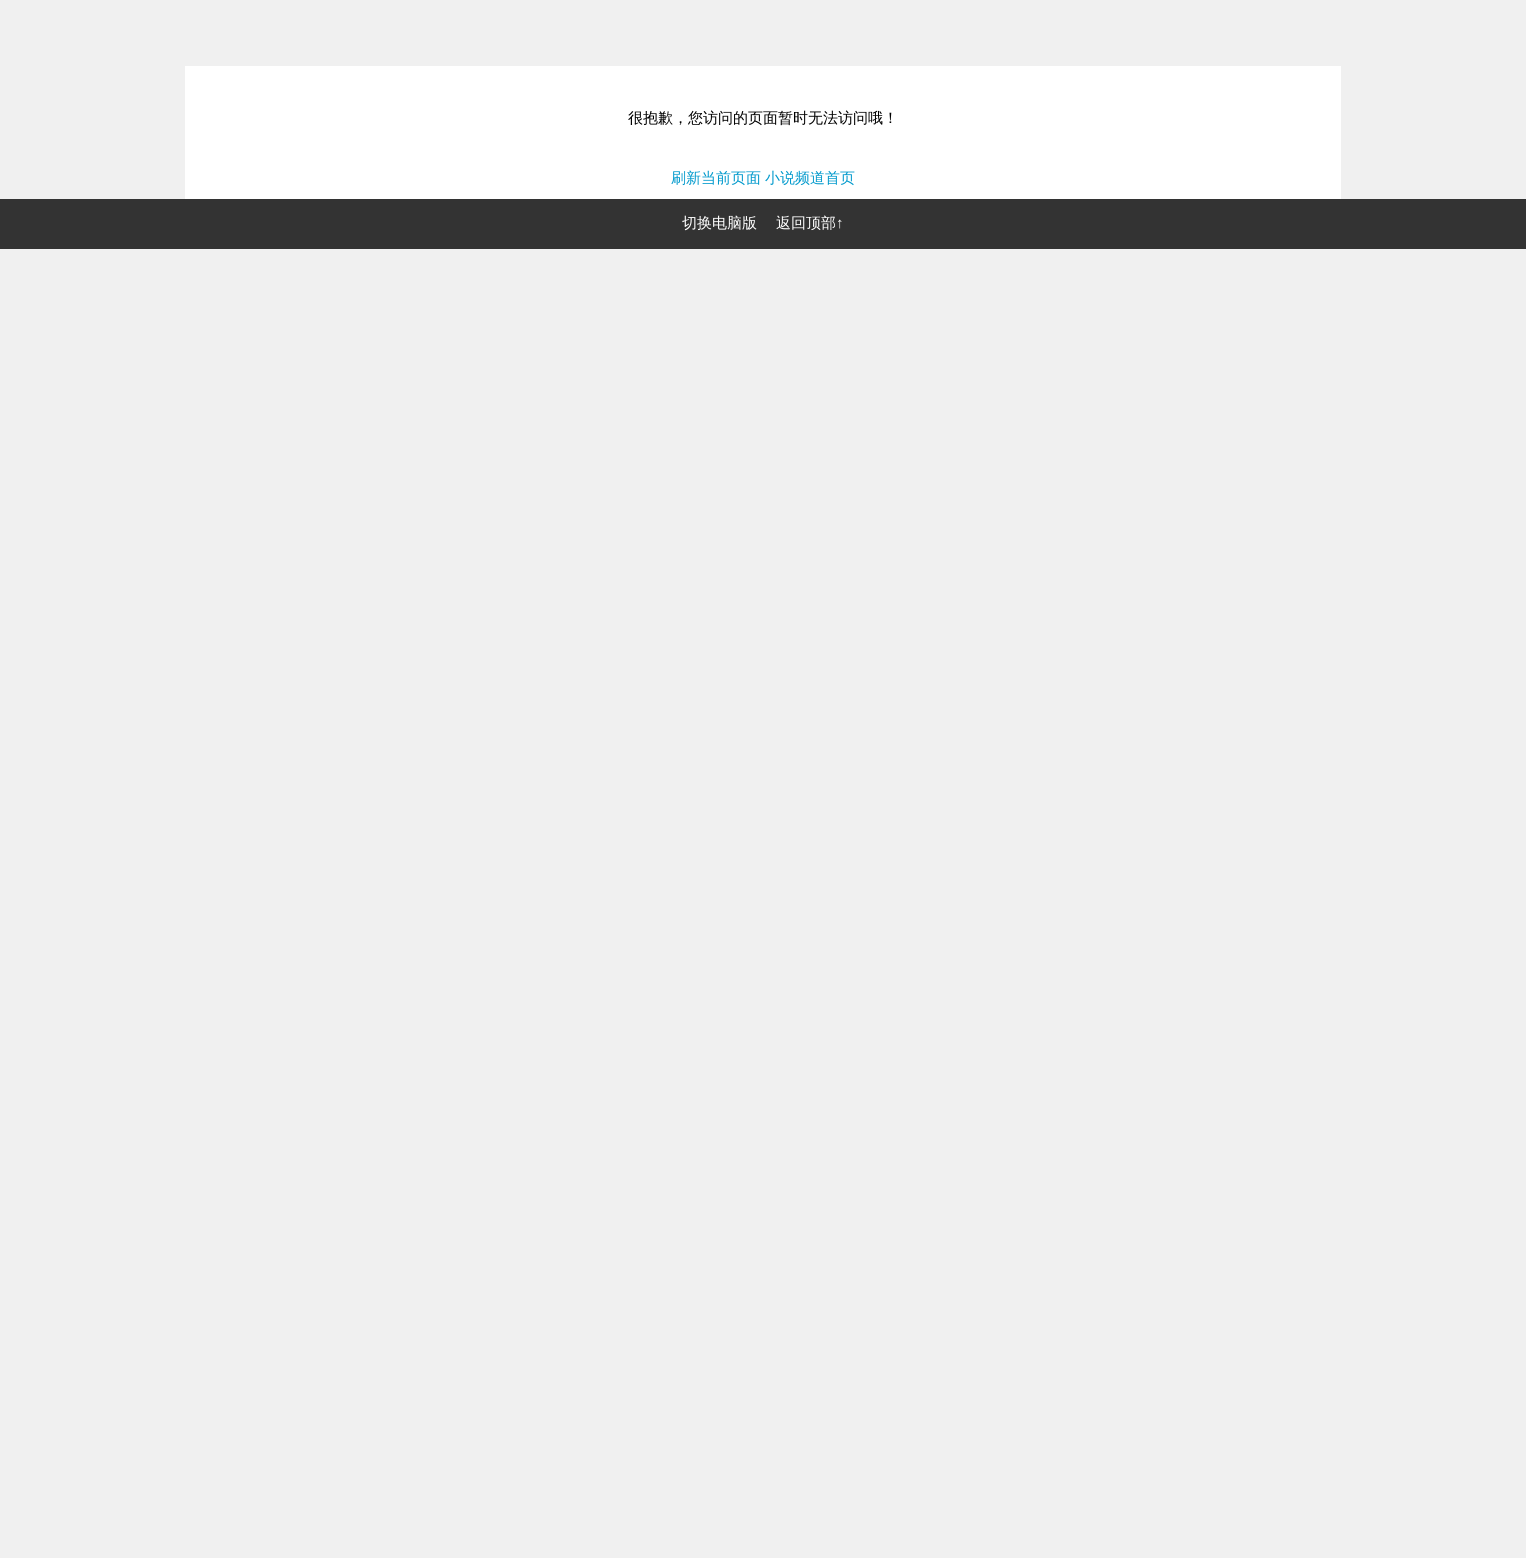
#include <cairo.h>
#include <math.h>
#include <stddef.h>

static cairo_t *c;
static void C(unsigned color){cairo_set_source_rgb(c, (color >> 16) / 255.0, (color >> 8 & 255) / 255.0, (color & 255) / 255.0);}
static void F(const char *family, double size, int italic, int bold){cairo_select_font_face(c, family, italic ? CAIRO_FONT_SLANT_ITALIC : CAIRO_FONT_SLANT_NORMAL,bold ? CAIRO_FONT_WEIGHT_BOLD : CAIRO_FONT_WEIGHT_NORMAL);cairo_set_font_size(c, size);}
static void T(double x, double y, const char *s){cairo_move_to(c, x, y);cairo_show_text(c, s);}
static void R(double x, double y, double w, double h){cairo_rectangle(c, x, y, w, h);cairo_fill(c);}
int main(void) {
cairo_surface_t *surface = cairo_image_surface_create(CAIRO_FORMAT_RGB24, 1526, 1558);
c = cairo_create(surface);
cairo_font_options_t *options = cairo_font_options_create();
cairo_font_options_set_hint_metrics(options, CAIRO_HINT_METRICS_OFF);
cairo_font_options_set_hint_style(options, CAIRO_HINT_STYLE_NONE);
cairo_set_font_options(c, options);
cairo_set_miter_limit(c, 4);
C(0xf0f0f0);
cairo_paint(c);
C(0xffffff);
R(185,66,1156,133);
F("WenQuanYi Zen Hei Medium",15,0,0);
C(0x000000);
T(628,123,"很抱歉，您访问的页面暂时无法访问哦！");
C(0x0099cc);
T(671,183,"刷新当前页面");
T(765,183,"小说频道首页");
C(0x333333);
R(0,199,1526,50);
C(0xffffff);
T(682,228,"切换电脑版");
T(776,228,"返回顶部");
F("Liberation Sans",15,0,0);
T(836,228,"↑");
cairo_surface_write_to_png(surface, "o.png");
cairo_font_options_destroy(options);
cairo_destroy(c);
cairo_surface_destroy(surface);
return 0;
}
